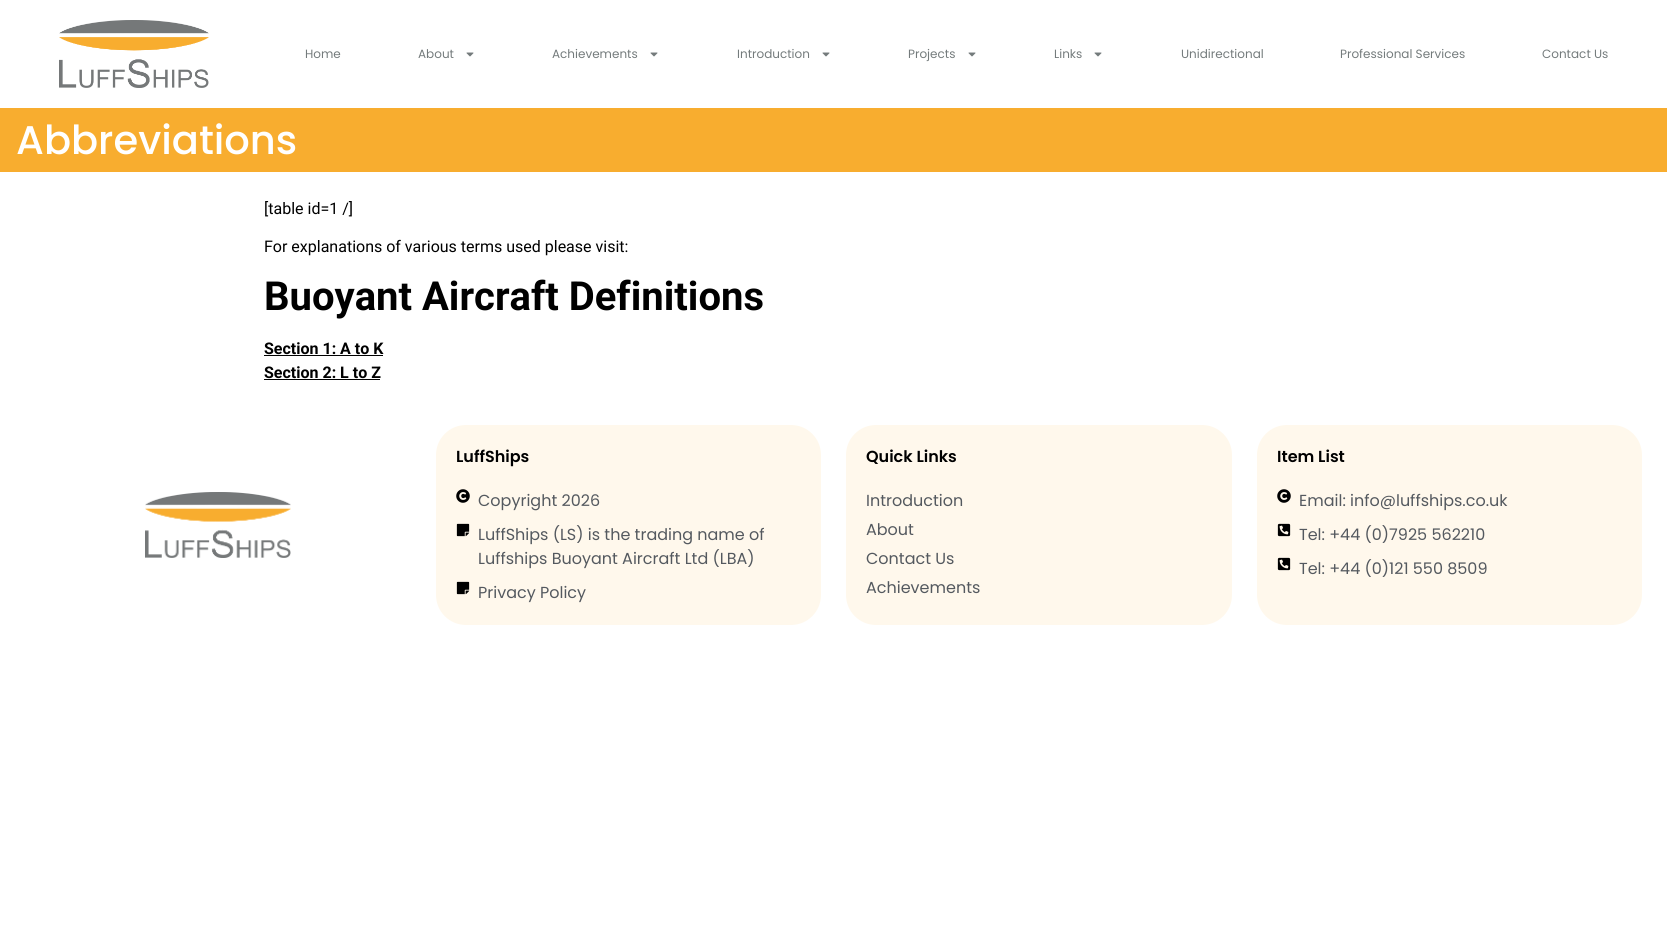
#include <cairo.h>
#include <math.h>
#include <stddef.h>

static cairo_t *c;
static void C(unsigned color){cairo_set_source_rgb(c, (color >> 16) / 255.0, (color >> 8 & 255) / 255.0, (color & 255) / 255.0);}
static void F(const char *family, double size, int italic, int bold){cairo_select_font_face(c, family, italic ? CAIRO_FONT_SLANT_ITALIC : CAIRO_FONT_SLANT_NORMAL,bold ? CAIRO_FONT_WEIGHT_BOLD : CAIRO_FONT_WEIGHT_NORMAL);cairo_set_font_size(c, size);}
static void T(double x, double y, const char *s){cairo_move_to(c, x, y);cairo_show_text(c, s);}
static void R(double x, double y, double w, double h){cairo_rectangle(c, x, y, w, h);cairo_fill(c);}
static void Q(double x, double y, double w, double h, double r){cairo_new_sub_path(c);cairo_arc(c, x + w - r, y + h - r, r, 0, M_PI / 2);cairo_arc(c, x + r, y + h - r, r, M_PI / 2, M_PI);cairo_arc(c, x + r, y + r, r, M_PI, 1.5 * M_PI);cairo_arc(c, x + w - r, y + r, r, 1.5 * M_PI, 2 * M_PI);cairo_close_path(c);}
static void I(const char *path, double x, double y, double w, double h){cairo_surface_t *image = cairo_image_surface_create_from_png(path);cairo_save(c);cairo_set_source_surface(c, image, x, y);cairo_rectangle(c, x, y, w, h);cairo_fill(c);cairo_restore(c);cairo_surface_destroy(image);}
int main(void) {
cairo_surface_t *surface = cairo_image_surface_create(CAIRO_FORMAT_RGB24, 1667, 938);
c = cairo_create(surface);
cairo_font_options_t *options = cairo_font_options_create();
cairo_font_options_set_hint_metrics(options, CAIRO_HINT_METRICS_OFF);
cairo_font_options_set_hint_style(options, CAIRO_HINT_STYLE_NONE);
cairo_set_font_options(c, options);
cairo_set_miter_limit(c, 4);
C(0xffffff);
cairo_paint(c);
I("1.png",59,20,150,68);
F("Poppins",12,0,0);
C(0x747b7c);
T(305,58,"Home");
T(418,58,"About");
I("2.png",466,52,8,5);
T(552,58,"Achievements");
I("2.png",650,52,8,5);
T(737,58,"Introduction");
I("2.png",822,52,8,5);
T(908,58,"Projects");
I("2.png",968,52,8,5);
T(1054,58,"Links");
I("2.png",1094,52,8,5);
T(1181,58,"Unidirectional");
T(1340,58,"Professional Services");
T(1542,58,"Contact Us");
C(0xf8ad2f);
R(0,108,1667,64);
F("Poppins Medium",40,0,0);
C(0xffffff);
T(16,154,"Abbreviations");
F("Roboto",16,0,0);
C(0x000000);
T(264,214,"[table id=1 /]");
T(264,252,"For explanations of various terms used please visit:");
F("Roboto",40,0,1);
T(264,310,"Buoyant Aircraft Definitions");
F("Roboto",16,0,1);
T(264,354,"Section 1: A to K");
R(264,355,119,1);
T(264,378,"Section 2: L to Z");
R(264,379,116,1);
I("3.png",145,492,146,66);
C(0xfff8ec);
Q(436,425,385,200,30);
cairo_fill(c);
F("Poppins SemiBold",16,0,0);
C(0x000000);
T(456,462,"LuffShips");
I("4.png",456,489,14,14);
F("Poppins",16,0,0);
C(0x54595f);
T(478,506,"Copyright 2026");
I("5.png",456,523,14,14);
T(478,540,"LuffShips (LS) is the trading name of");
T(478,564,"Luffships Buoyant Aircraft Ltd (LBA)");
I("5.png",456,581,14,14);
T(478,598,"Privacy Policy");
C(0xfff8ec);
Q(846,425,386,200,30);
cairo_fill(c);
F("Poppins SemiBold",16,0,0);
C(0x000000);
T(866,462,"Quick Links");
F("Poppins",16,0,0);
C(0x54595f);
T(866,506,"Introduction");
T(866,535,"About");
T(866,564,"Contact Us");
T(866,593,"Achievements");
C(0xfff8ec);
Q(1257,425,385,200,30);
cairo_fill(c);
F("Poppins SemiBold",16,0,0);
C(0x000000);
T(1277,462,"Item List");
I("4.png",1277,489,14,14);
F("Poppins",16,0,0);
C(0x54595f);
T(1299,506,"Email: info@luffships.co.uk");
I("6.png",1277,523,14,14);
T(1299,540,"Tel: +44 (0)7925 562210");
I("6.png",1277,557,14,14);
T(1299,574,"Tel: +44 (0)121 550 8509");
cairo_surface_write_to_png(surface, "o.png");
cairo_font_options_destroy(options);
cairo_destroy(c);
cairo_surface_destroy(surface);
return 0;
}
